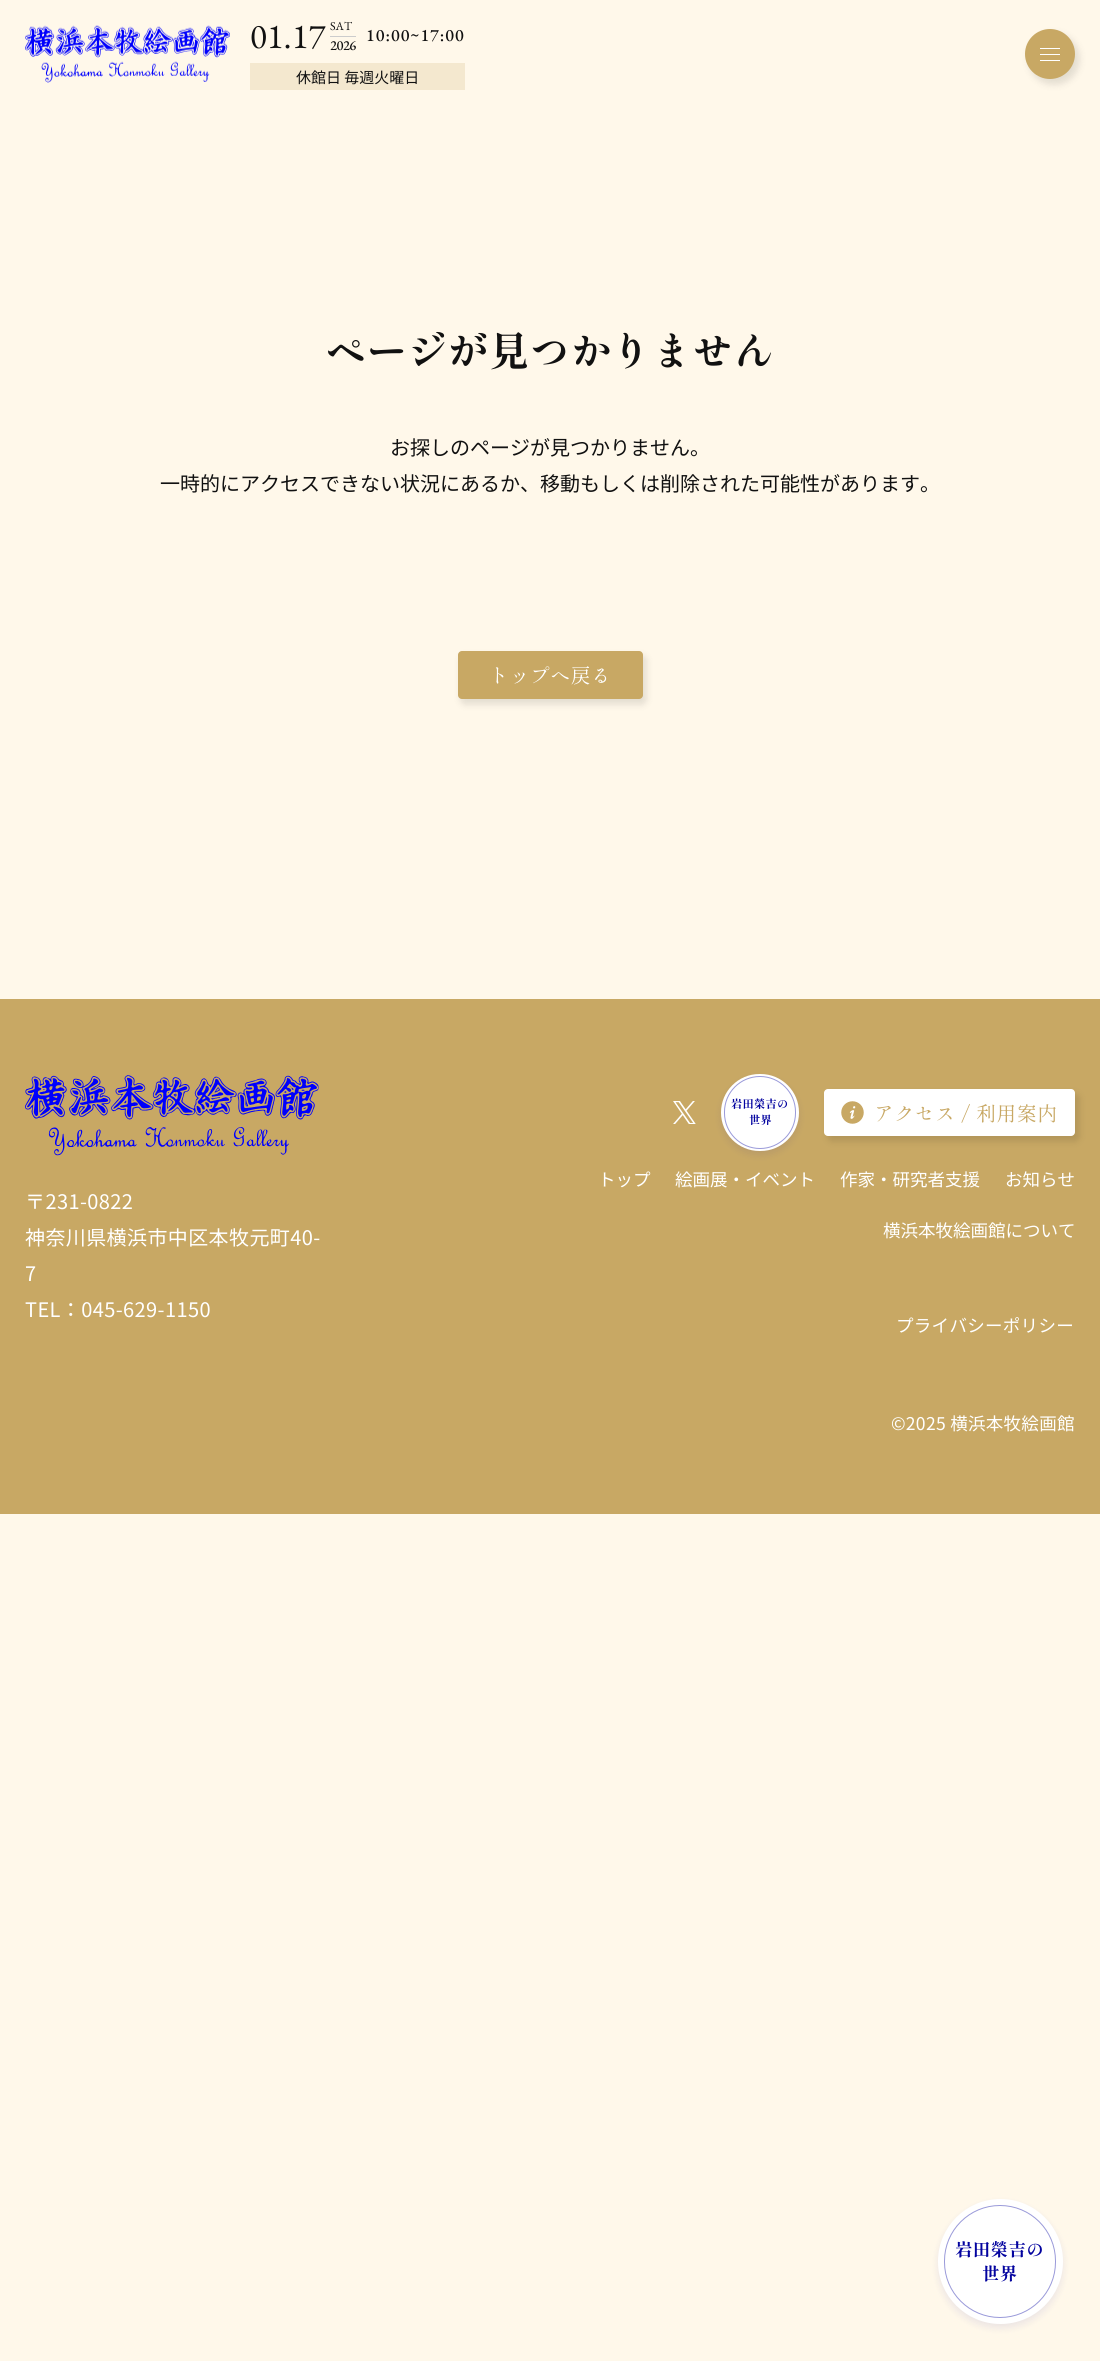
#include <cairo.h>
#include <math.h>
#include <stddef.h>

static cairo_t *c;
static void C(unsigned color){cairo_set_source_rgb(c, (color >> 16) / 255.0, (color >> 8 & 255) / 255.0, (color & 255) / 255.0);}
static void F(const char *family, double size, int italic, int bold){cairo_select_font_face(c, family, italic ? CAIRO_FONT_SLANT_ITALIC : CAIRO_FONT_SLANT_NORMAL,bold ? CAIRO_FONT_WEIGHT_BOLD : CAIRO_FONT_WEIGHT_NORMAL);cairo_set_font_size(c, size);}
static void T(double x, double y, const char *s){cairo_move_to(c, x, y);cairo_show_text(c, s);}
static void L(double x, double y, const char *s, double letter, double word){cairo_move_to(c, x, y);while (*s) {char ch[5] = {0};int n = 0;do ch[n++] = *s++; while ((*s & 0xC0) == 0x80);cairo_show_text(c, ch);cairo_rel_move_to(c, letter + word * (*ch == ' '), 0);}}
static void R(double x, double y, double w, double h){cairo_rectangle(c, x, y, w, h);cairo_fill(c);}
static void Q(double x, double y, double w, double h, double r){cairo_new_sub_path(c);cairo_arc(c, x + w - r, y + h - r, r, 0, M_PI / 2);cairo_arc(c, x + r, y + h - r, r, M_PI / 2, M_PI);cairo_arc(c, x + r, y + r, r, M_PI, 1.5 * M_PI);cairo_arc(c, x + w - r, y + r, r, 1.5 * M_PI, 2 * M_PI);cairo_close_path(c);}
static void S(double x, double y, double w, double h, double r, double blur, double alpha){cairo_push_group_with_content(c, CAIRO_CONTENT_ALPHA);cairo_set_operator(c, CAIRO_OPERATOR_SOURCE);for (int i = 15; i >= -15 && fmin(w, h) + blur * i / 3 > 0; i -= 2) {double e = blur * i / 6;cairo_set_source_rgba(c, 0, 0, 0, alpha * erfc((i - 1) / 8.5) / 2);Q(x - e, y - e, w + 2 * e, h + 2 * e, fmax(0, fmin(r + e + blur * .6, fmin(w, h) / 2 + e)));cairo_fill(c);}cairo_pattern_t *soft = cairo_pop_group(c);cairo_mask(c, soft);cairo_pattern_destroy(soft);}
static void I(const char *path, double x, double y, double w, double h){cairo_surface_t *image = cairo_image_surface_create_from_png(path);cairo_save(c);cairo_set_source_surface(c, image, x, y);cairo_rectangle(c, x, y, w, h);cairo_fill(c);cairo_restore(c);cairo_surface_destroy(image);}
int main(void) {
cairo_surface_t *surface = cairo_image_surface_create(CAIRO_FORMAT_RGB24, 1100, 2361);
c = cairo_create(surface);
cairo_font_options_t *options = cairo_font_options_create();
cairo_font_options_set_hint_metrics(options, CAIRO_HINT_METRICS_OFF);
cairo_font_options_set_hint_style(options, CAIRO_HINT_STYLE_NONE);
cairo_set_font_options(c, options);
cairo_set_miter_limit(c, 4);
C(0xfff8ea);
cairo_paint(c);
I("1.png",25,25,205,58);
F("EB Garamond",35,0,0);
C(0x111111);
T(250,48,"01.17");
C(0xcccccc);
R(330,36,26,1);
F("EB Garamond",12,0,0);
C(0x111111);
T(330,30,"SAT");
F("EB Garamond Medium",14,0,0);
L(330,50,"2026",-.5,0);
F("EB Garamond Medium",17.5,0,0);
L(366,41,"10:00~17:00",1,0);
C(0xf4e8cf);
R(250,63,215,27);
F("Noto Sans JP",15,0,0);
C(0x111111);
T(296,83,"休館日 毎週火曜日");
C(0x000000);
S(1029,34,50,50,25,4,.12);
C(0xc8a864);
cairo_arc(c,1050,54,25,0,2 * M_PI);
cairo_fill(c);
C(0xffffff);
R(1040,48,20,1);
R(1040,54,20,1);
R(1040,60,20,1);
F("Shippori Mincho B1",40,0,1);
C(0x111111);
L(326,366,"ページが見つかりません",.75,0);
F("Noto Sans JP",20,0,0);
T(390,455,"お探しのページが見つかりません。");
T(160,491,"一時的にアクセスできない状況にあるか、移動もしくは削除された可能性があります。");
C(0x000000);
S(461,656,185,48,4,4,.12);
C(0xc8a864);
Q(458,651,185,48,4);
cairo_fill(c);
F("Shippori Mincho B1",20,0,0);
C(0xffffff);
L(489,683,"トップへ戻る",.4,0);
C(0xc8a864);
R(0,999,1100,515);
I("2.png",25,1075,294,81);
F("Noto Sans JP",20,0,0);
C(0xffffff);
L(25,1209,"〒231-0822",.4,0);
L(25,1245,"神奈川県横浜市中区本牧元町40-",.4,0);
L(25,1281,"7",.4,0);
L(25,1317,"TEL：045-629-1150",.4,0);
I("3.png",673,1101,23,23);
C(0x03039f);
S(721,1078,78,77,38.5,4,.08);
C(0xffffff);
Q(721,1074,78,77,38.5);
cairo_fill(c);
Q(724.5,1076.5,71,72,35.5);
C(0x9a9ad9);
cairo_set_line_width(c,1);
cairo_stroke(c);
F("Shippori Mincho B1",11.25,0,1);
C(0x03039f);
L(731,1108,"岩田榮吉の",.25,0);
L(749,1124,"世界",.25,0);
C(0x000000);
S(828,1094,251,47,4,4,.12);
C(0xffffff);
Q(824,1089,251,47,4);
cairo_fill(c);
I("4.png",841,1101,23,23);
F("Shippori Mincho B1",20,0,0);
C(0xc8a864);
L(874,1121,"アクセス / 利用案内",.4,0);
F("Noto Sans JP",17.5,0,0);
C(0xffffff);
T(598,1186,"トップ");
T(675,1186,"絵画展・イベント");
T(840,1186,"作家・研究者⽀援");
T(1005,1186,"お知らせ");
T(883,1237,"横浜本牧絵画館について");
L(896,1332,"プライバシーポリシー",.3,0);
L(891,1430,"©2025 横浜本牧絵画館",.3,0);
C(0x03039f);
S(938,2203,125,125,62.5,4,.08);
C(0xffffff);
cairo_arc(c,1000.5,2261.5,62.5,0,2 * M_PI);
cairo_fill(c);
Q(944.5,2205.5,111,112,55.5);
C(0x9a9ad9);
cairo_stroke(c);
F("Shippori Mincho B1",17.5,0,1);
C(0x03039f);
L(955,2256,"岩田榮吉の",.3,0);
L(982,2280,"世界",.3,0);
cairo_surface_write_to_png(surface, "o.png");
cairo_font_options_destroy(options);
cairo_destroy(c);
cairo_surface_destroy(surface);
return 0;
}
